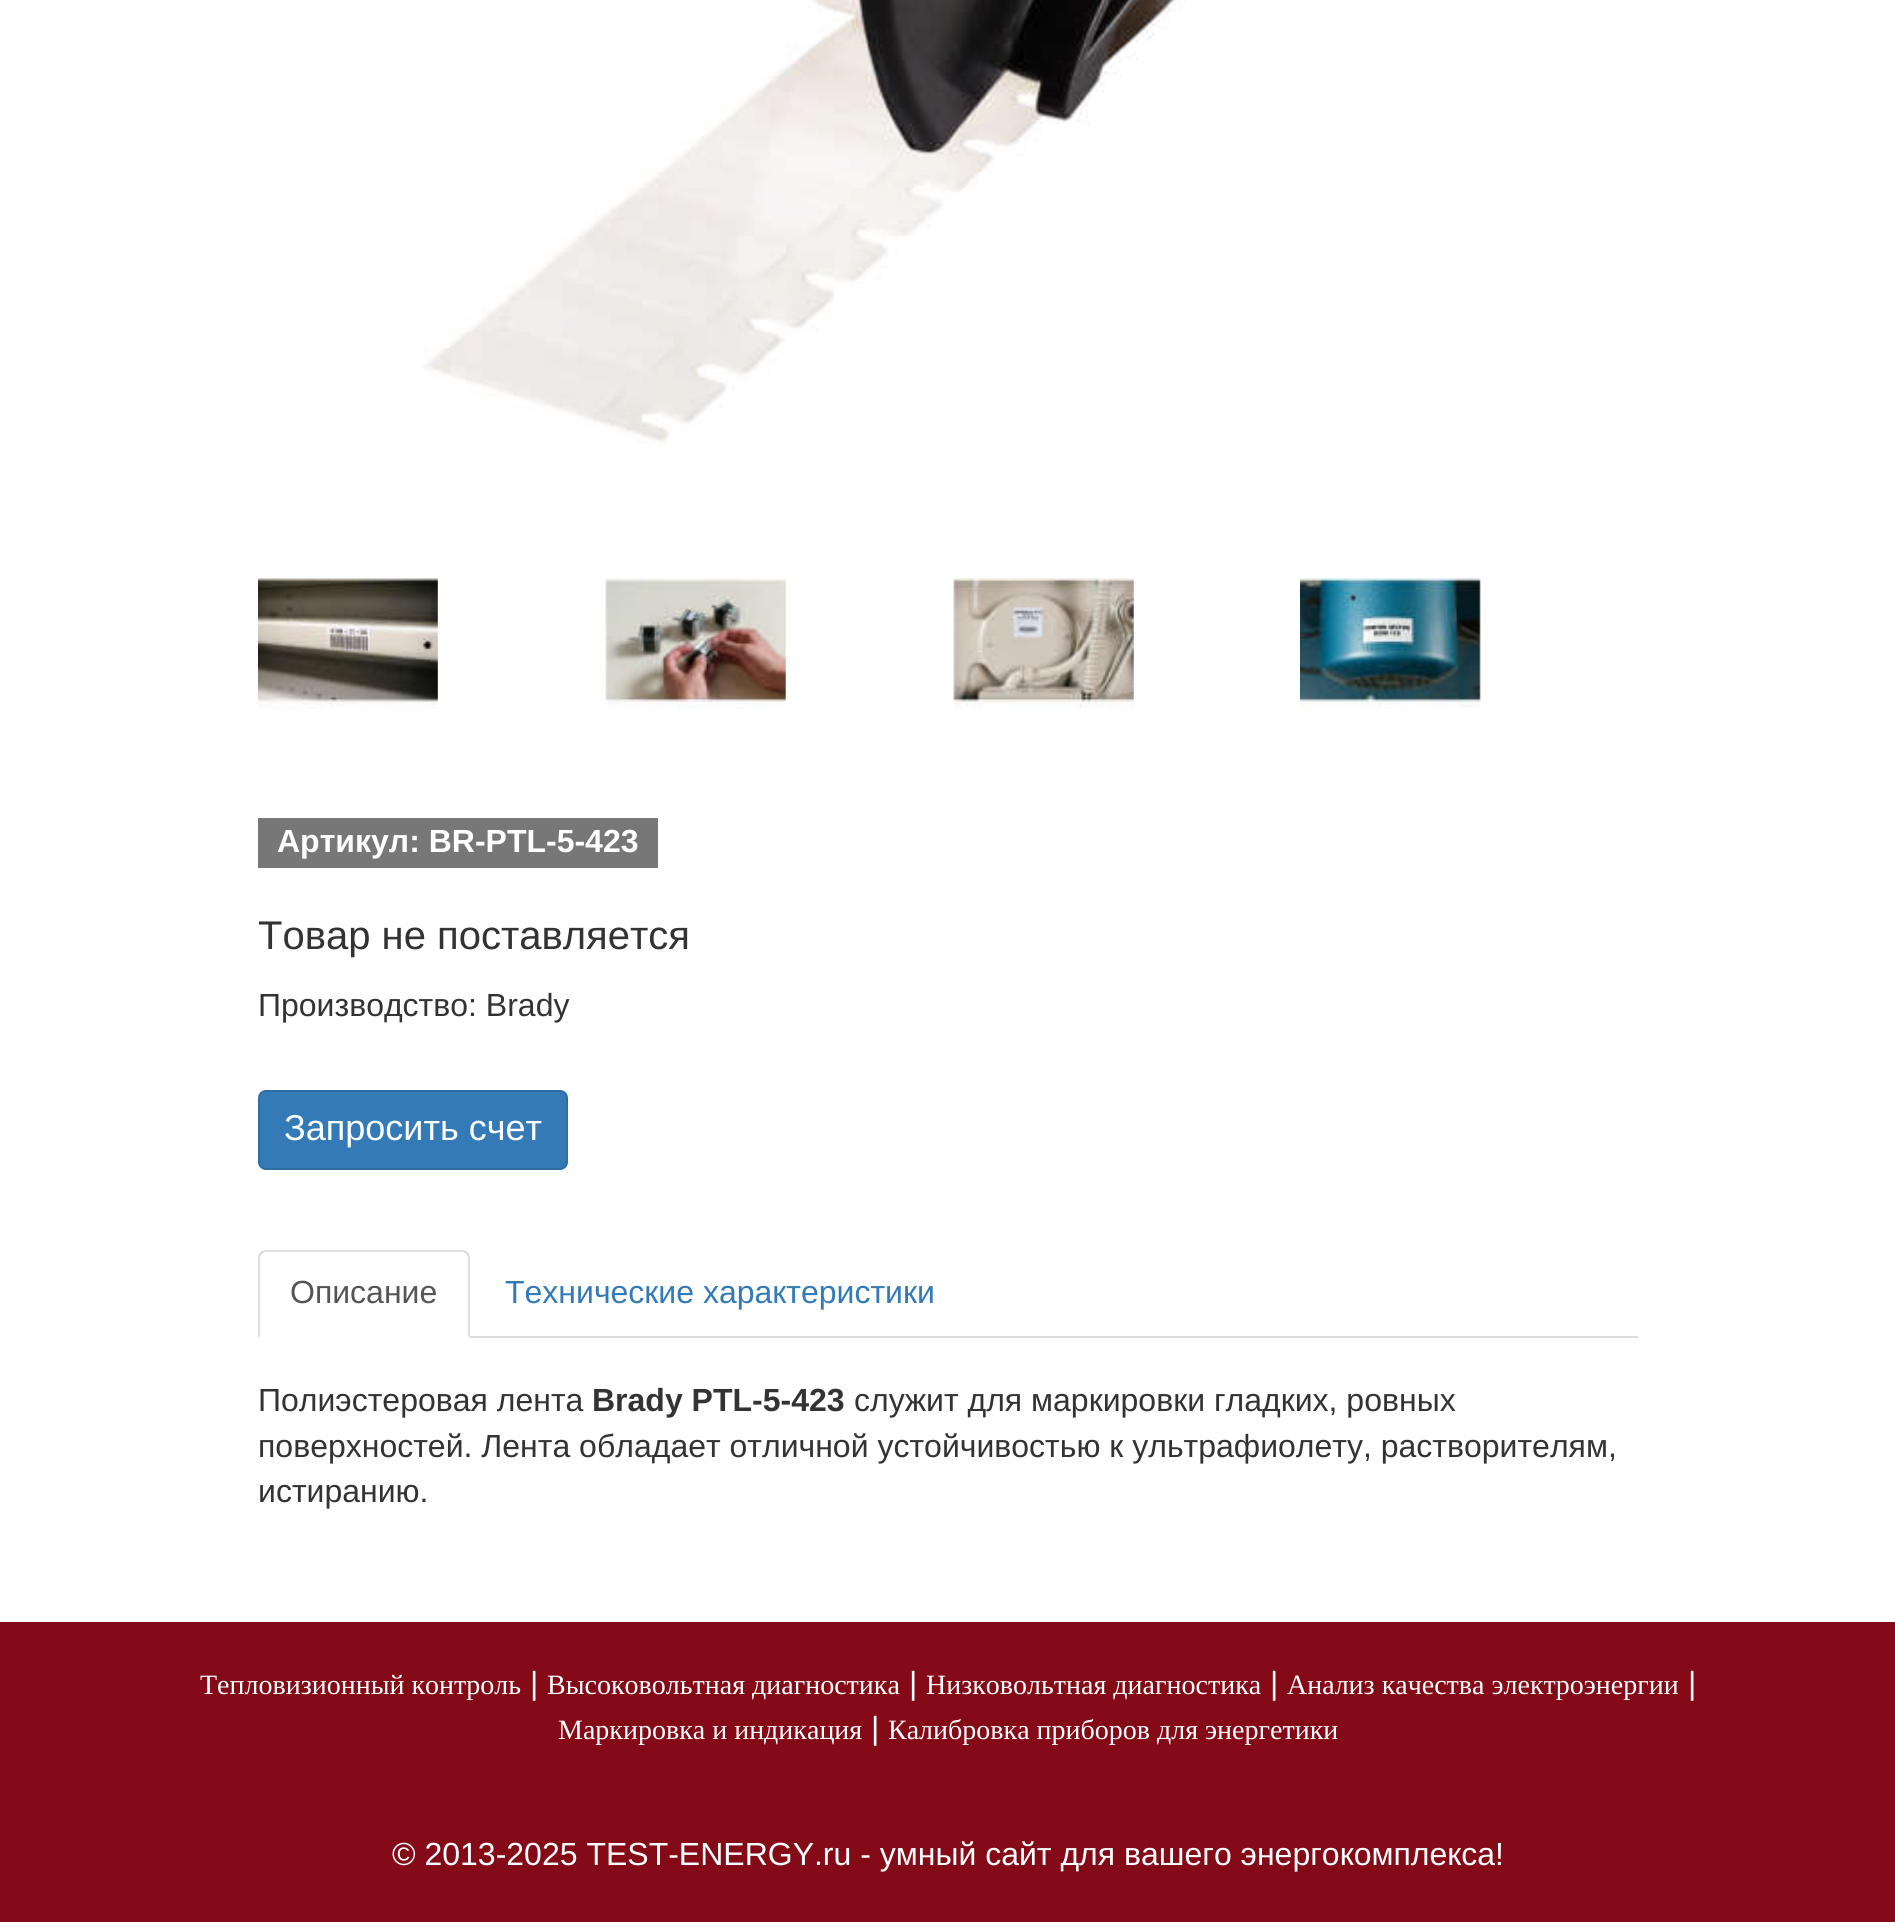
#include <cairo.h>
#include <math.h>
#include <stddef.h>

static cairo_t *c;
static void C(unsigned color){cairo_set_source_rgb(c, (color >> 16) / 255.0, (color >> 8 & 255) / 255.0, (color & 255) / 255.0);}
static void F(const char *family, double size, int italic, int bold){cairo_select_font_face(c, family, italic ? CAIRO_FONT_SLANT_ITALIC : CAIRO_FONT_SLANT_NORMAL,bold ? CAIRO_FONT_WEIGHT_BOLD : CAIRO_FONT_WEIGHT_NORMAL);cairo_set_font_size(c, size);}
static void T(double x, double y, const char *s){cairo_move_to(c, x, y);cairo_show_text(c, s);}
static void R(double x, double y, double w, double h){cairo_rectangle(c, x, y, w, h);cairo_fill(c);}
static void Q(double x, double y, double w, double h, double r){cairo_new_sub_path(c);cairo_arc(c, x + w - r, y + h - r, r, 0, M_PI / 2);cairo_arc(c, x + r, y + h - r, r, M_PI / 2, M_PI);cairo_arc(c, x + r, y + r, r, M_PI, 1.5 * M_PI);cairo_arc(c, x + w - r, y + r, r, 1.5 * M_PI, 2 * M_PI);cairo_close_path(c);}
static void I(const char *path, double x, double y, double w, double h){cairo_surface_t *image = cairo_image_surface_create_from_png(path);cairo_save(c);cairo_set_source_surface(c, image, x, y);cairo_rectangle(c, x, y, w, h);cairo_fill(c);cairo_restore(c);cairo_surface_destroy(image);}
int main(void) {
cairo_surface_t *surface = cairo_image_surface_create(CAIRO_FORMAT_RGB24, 1895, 1922);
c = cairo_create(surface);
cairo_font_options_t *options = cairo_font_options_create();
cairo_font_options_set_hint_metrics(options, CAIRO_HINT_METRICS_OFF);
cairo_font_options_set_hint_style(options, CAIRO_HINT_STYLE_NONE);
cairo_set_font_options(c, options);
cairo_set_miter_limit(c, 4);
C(0xffffff);
cairo_paint(c);
I("1.png",422,0,764,444);
I("2.png",258,578,180,131);
I("3.png",605,578,181,131);
I("4.png",953,578,181,131);
I("5.png",1300,578,181,131);
C(0x777777);
R(258,818,400,50);
F("Liberation Sans",32,0,1);
C(0xffffff);
T(277,852,"Артикул: BR-PTL-5-423");
F("Liberation Sans",40,0,0);
C(0x333333);
T(258,949,"Товар не поставляется");
F("Liberation Sans",32,0,0);
T(258,1016,"Производство: Brady");
C(0x337ab7);
Q(259,1091,308,78,7);
cairo_fill_preserve(c);
C(0x2e6da4);
cairo_stroke(c);
F("Liberation Sans",36,0,0);
C(0xffffff);
T(284,1140,"Запросить счет");
C(0xdddddd);
R(470,1336,1168,2);
cairo_new_path(c);
cairo_move_to(c,266,1250);
cairo_curve_to(c,264,1250,262,1251,260,1252);
cairo_line_to(c,262,1254);
cairo_curve_to(c,263,1253,264,1252,266,1252);
cairo_line_to(c,462,1252);
cairo_curve_to(c,464,1252,465,1253,466,1254);
cairo_line_to(c,468,1252);
cairo_curve_to(c,466,1251,464,1250,462,1250);
cairo_close_path(c);
cairo_fill(c);
cairo_new_path(c);
cairo_move_to(c,470,1338);
cairo_line_to(c,470,1258);
cairo_curve_to(c,470,1256,469,1254,468,1252);
cairo_line_to(c,466,1254);
cairo_line_to(c,468,1257);
cairo_line_to(c,468,1336);
cairo_close_path(c);
cairo_fill(c);
cairo_new_path(c);
cairo_move_to(c,258,1338);
cairo_line_to(c,260,1336);
cairo_line_to(c,260,1257);
cairo_line_to(c,262,1254);
cairo_line_to(c,260,1252);
cairo_curve_to(c,259,1254,258,1256,258,1258);
cairo_close_path(c);
cairo_fill(c);
F("Liberation Sans",32,0,0);
C(0x555555);
T(290,1303,"Описание");
C(0x337ab7);
T(505,1303,"Технические характеристики");
C(0x333333);
T(258,1411,"Полиэстеровая лента");
F("Liberation Sans",32,0,1);
T(592,1411,"Brady PTL-5-423");
F("Liberation Sans",32,0,0);
T(854,1411,"служит для маркировки гладких, ровных");
T(258,1457,"поверхностей. Лента обладает отличной устойчивостью к ультрафиолету, растворителям,");
T(258,1502,"истиранию.");
C(0x830a16);
R(0,1622,1895,300);
F("Liberation Serif",28,0,0);
C(0xffffff);
T(200,1694,"Тепловизионный контроль");
F("Liberation Sans",32,0,0);
T(530,1694,"|");
F("Liberation Serif",28,0,0);
T(547,1694,"Высоковольтная диагностика");
F("Liberation Sans",32,0,0);
T(909,1694,"|");
F("Liberation Serif",28,0,0);
T(926,1694,"Низковольтная диагностика");
F("Liberation Sans",32,0,0);
T(1270,1694,"|");
F("Liberation Serif",28,0,0);
T(1287,1694,"Анализ качества электроэнергии");
F("Liberation Sans",32,0,0);
T(1688,1694,"|");
F("Liberation Serif",28,0,0);
T(558,1739,"Маркировка и индикация");
F("Liberation Sans",32,0,0);
T(871,1739,"|");
F("Liberation Serif",28,0,0);
T(888,1739,"Калибровка приборов для энергетики");
F("Liberation Sans",32,0,0);
T(392,1865,"© 2013-2025 TEST-ENERGY.ru - умный сайт для вашего энергокомплекса!");
cairo_surface_write_to_png(surface, "o.png");
cairo_font_options_destroy(options);
cairo_destroy(c);
cairo_surface_destroy(surface);
return 0;
}
